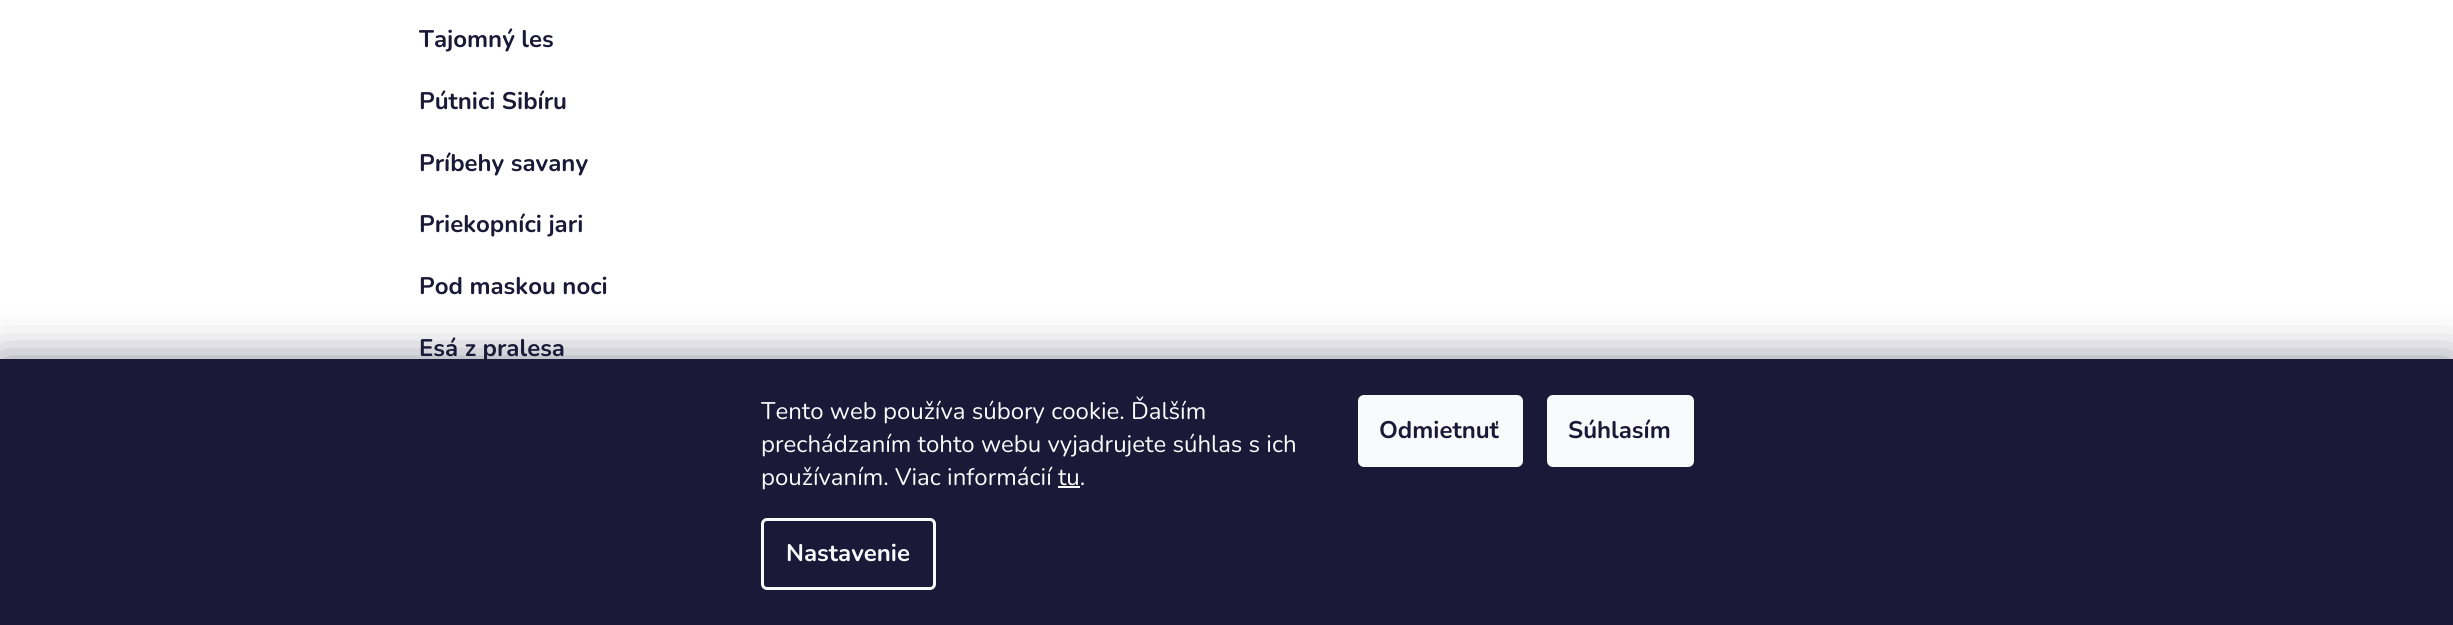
#include <cairo.h>
#include <math.h>
#include <stddef.h>

static cairo_t *c;
static void C(unsigned color){cairo_set_source_rgb(c, (color >> 16) / 255.0, (color >> 8 & 255) / 255.0, (color & 255) / 255.0);}
static void F(const char *family, double size, int italic, int bold){cairo_select_font_face(c, family, italic ? CAIRO_FONT_SLANT_ITALIC : CAIRO_FONT_SLANT_NORMAL,bold ? CAIRO_FONT_WEIGHT_BOLD : CAIRO_FONT_WEIGHT_NORMAL);cairo_set_font_size(c, size);}
static void T(double x, double y, const char *s){cairo_move_to(c, x, y);cairo_show_text(c, s);}
static void R(double x, double y, double w, double h){cairo_rectangle(c, x, y, w, h);cairo_fill(c);}
static void Q(double x, double y, double w, double h, double r){cairo_new_sub_path(c);cairo_arc(c, x + w - r, y + h - r, r, 0, M_PI / 2);cairo_arc(c, x + r, y + h - r, r, M_PI / 2, M_PI);cairo_arc(c, x + r, y + r, r, M_PI, 1.5 * M_PI);cairo_arc(c, x + w - r, y + r, r, 1.5 * M_PI, 2 * M_PI);cairo_close_path(c);}
static void S(double x, double y, double w, double h, double r, double blur, double alpha){cairo_push_group_with_content(c, CAIRO_CONTENT_ALPHA);cairo_set_operator(c, CAIRO_OPERATOR_SOURCE);for (int i = 15; i >= -15 && fmin(w, h) + blur * i / 3 > 0; i -= 2) {double e = blur * i / 6;cairo_set_source_rgba(c, 0, 0, 0, alpha * erfc((i - 1) / 8.5) / 2);Q(x - e, y - e, w + 2 * e, h + 2 * e, fmax(0, fmin(r + e + blur * .6, fmin(w, h) / 2 + e)));cairo_fill(c);}cairo_pattern_t *soft = cairo_pop_group(c);cairo_mask(c, soft);cairo_pattern_destroy(soft);}
int main(void) {
cairo_surface_t *surface = cairo_image_surface_create(CAIRO_FORMAT_RGB24, 2453, 625);
c = cairo_create(surface);
cairo_font_options_t *options = cairo_font_options_create();
cairo_font_options_set_hint_metrics(options, CAIRO_HINT_METRICS_OFF);
cairo_font_options_set_hint_style(options, CAIRO_HINT_STYLE_NONE);
cairo_set_font_options(c, options);
cairo_set_miter_limit(c, 4);
C(0xffffff);
cairo_paint(c);
F("Nunito",24,0,1);
C(0x1a1937);
T(419,47,"Tajomný les");
T(419,109,"Pútnici Sibíru");
T(419,171,"Príbehy savany");
T(419,232,"Priekopníci jari");
T(419,294,"Pod maskou noci");
T(419,356,"Esá z pralesa");
C(0x1b1939);
S(0,359,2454,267,0,22.5,.5);
C(0x1a1937);
R(0,359,2453,266);
F("Nunito",24,0,0);
C(0xf8fafb);
T(761,419,"Tento web používa súbory cookie. Ďalším");
T(761,452,"prechádzaním tohto webu vyjadrujete súhlas s ich");
T(761,485,"používaním. Viac informácií tu.");
R(1058,486,22,2);
Q(762.5,519.5,172,69,4.5);
cairo_set_line_width(c,3);
cairo_stroke(c);
F("Nunito",24,0,1);
T(786,561,"Nastavenie");
Q(1358,395,165,72,6);
cairo_fill(c);
C(0x1a1937);
T(1379,438,"Odmietnuť");
C(0xf8fafb);
Q(1547,395,147,72,6);
cairo_fill(c);
C(0x1a1937);
T(1568,438,"Súhlasím");
cairo_surface_write_to_png(surface, "o.png");
cairo_font_options_destroy(options);
cairo_destroy(c);
cairo_surface_destroy(surface);
return 0;
}
